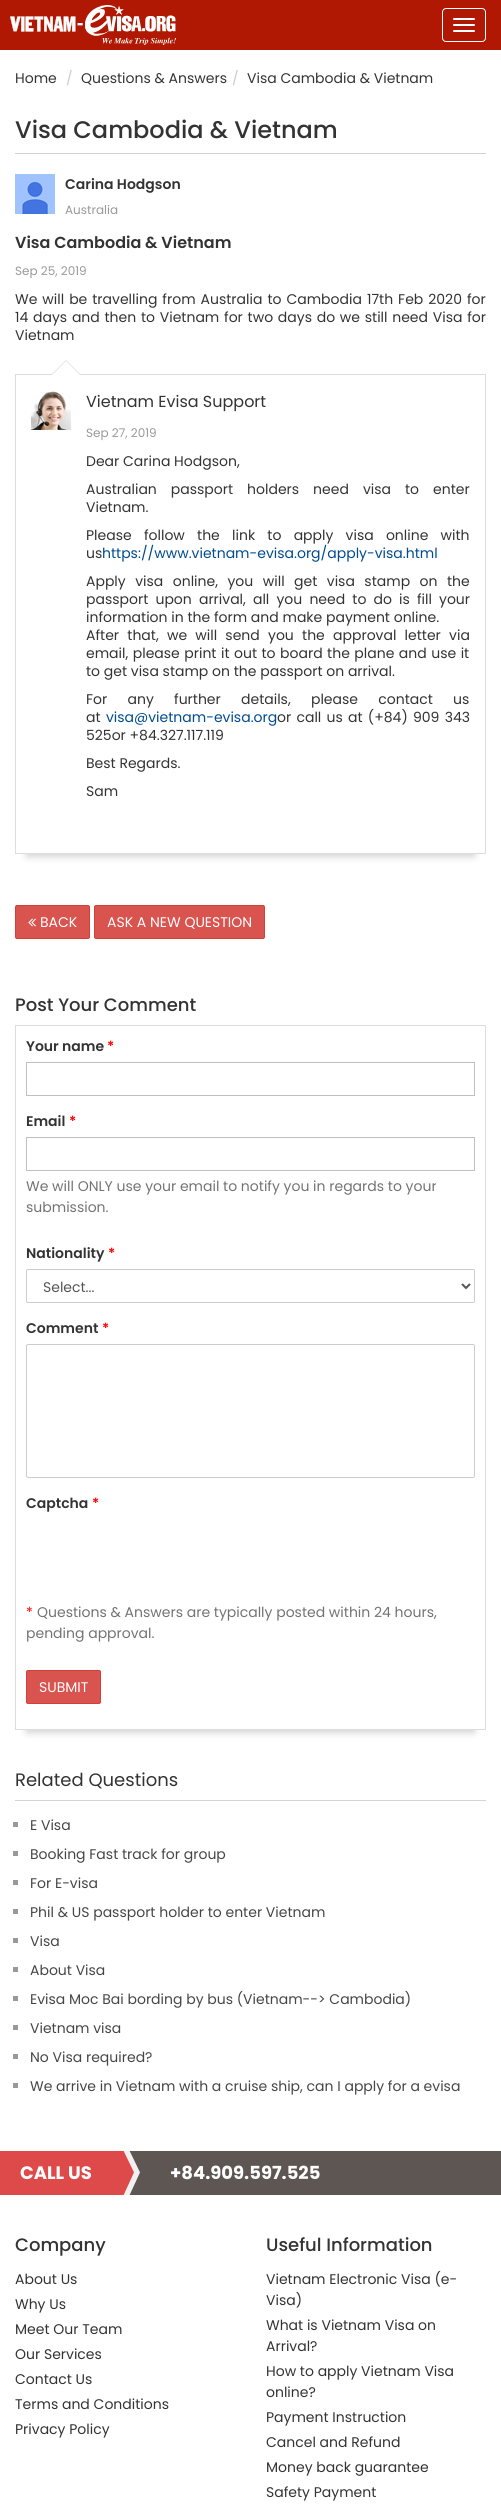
#include <cairo.h>
#include <math.h>
#include <stddef.h>

static cairo_t *c;
static void C(unsigned color){cairo_set_source_rgb(c, (color >> 16) / 255.0, (color >> 8 & 255) / 255.0, (color & 255) / 255.0);}
static void F(const char *family, double size, int italic, int bold){cairo_select_font_face(c, family, italic ? CAIRO_FONT_SLANT_ITALIC : CAIRO_FONT_SLANT_NORMAL,bold ? CAIRO_FONT_WEIGHT_BOLD : CAIRO_FONT_WEIGHT_NORMAL);cairo_set_font_size(c, size);}
static void T(double x, double y, const char *s){cairo_move_to(c, x, y);cairo_show_text(c, s);}
static void L(double x, double y, const char *s, double letter, double word){cairo_move_to(c, x, y);while (*s) {char ch[5] = {0};int n = 0;do ch[n++] = *s++; while ((*s & 0xC0) == 0x80);cairo_show_text(c, ch);cairo_rel_move_to(c, letter + word * (*ch == ' '), 0);}}
static void R(double x, double y, double w, double h){cairo_rectangle(c, x, y, w, h);cairo_fill(c);}
static void Q(double x, double y, double w, double h, double r){cairo_new_sub_path(c);cairo_arc(c, x + w - r, y + h - r, r, 0, M_PI / 2);cairo_arc(c, x + r, y + h - r, r, M_PI / 2, M_PI);cairo_arc(c, x + r, y + r, r, M_PI, 1.5 * M_PI);cairo_arc(c, x + w - r, y + r, r, 1.5 * M_PI, 2 * M_PI);cairo_close_path(c);}
static void S(double x, double y, double w, double h, double r, double blur, double alpha){cairo_push_group_with_content(c, CAIRO_CONTENT_ALPHA);cairo_set_operator(c, CAIRO_OPERATOR_SOURCE);for (int i = 15; i >= -15 && fmin(w, h) + blur * i / 3 > 0; i -= 2) {double e = blur * i / 6;cairo_set_source_rgba(c, 0, 0, 0, alpha * erfc((i - 1) / 8.5) / 2);Q(x - e, y - e, w + 2 * e, h + 2 * e, fmax(0, fmin(r + e + blur * .6, fmin(w, h) / 2 + e)));cairo_fill(c);}cairo_pattern_t *soft = cairo_pop_group(c);cairo_mask(c, soft);cairo_pattern_destroy(soft);}
static void I(const char *path, double x, double y, double w, double h){cairo_surface_t *image = cairo_image_surface_create_from_png(path);cairo_save(c);cairo_set_source_surface(c, image, x, y);cairo_rectangle(c, x, y, w, h);cairo_fill(c);cairo_restore(c);cairo_surface_destroy(image);}
int main(void) {
cairo_surface_t *surface = cairo_image_surface_create(CAIRO_FORMAT_RGB24, 501, 2505);
c = cairo_create(surface);
cairo_font_options_t *options = cairo_font_options_create();
cairo_font_options_set_hint_metrics(options, CAIRO_HINT_METRICS_OFF);
cairo_font_options_set_hint_style(options, CAIRO_HINT_STYLE_NONE);
cairo_set_font_options(c, options);
cairo_set_miter_limit(c, 4);
C(0xffffff);
cairo_paint(c);
C(0xb01803);
R(0,0,501,50);
I("1.png",10,5,166,40);
Q(442.5,8.5,43,33,3.5);
C(0xffffff);
cairo_set_line_width(c,1);
cairo_stroke(c);
Q(453,18,22,2,1);
cairo_fill(c);
Q(453,24,22,2,1);
cairo_fill(c);
Q(453,30,22,2,1);
cairo_fill(c);
F("Poppins",14,0,0);
C(0x333333);
T(15,83,"Home");
C(0xcccccc);
T(66,83,"/");
C(0x333333);
T(81,83,"Questions & Answers");
C(0xcccccc);
T(232,83,"/");
C(0x333333);
T(247,83,"Visa Cambodia & Vietnam");
C(0xd3d3d3);
R(15,153,471,1);
F("Poppins Medium",24,0,0);
C(0x333333);
T(15,138,"Visa Cambodia & Vietnam");
I("2.png",15,174,40,40);
F("Poppins SemiBold",14,0,0);
T(65,189,"Carina Hodgson");
F("Poppins",12,0,0);
C(0x999999);
T(65,214,"Australia");
F("Poppins SemiBold",16,0,0);
C(0x333333);
T(15,248,"Visa Cambodia & Vietnam");
F("Poppins",12,0,0);
C(0x999999);
T(15,275,"Sep 25, 2019");
F("Poppins",14,0,0);
C(0x333333);
L(15,304,"We will be travelling from Australia to Cambodia 17th Feb 2020 for",0,1.25);
L(15,322,"14 days and then to Vietnam for two days do we still need Visa for",0,1);
T(15,340,"Vietnam");
cairo_save(c);
cairo_rectangle(c,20,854,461,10);
cairo_clip(c);
C(0xcccccc);
S(27,400,447,456,0,4,1);
cairo_restore(c);
I("3.png",31,391,40,39);
cairo_rectangle(c,15.5,374.5,470,479);
C(0xdddddd);
cairo_stroke(c);
cairo_new_path(c);
cairo_move_to(c,81,375);
cairo_line_to(c,51,375);
cairo_line_to(c,66,360);
cairo_close_path(c);
cairo_fill(c);
C(0xffffff);
cairo_new_path(c);
cairo_move_to(c,80,375);
cairo_line_to(c,52,375);
cairo_line_to(c,66,361);
cairo_close_path(c);
cairo_fill(c);
F("Poppins",16,0,0);
C(0x333333);
T(86,407,"Vietnam Evisa Support");
F("Poppins",12,0,0);
C(0x999999);
T(86,437,"Sep 27, 2019");
F("Poppins",14,0,0);
C(0x333333);
T(86,466,"Dear Carina Hodgson,");
L(86,494,"Australian passport holders need visa to enter",0,10.25);
T(86,512,"Vietnam.");
L(86,540,"Please follow the link to apply visa online with",0,8.5);
T(86,558,"us");
C(0x004b91);
T(102,558,"https://www.vietnam-evisa.org/apply-visa.html");
C(0x333333);
L(86,586,"Apply visa online, you will get visa stamp on the",0,5.75);
L(86,604,"passport upon arrival, all you need to do is fill your",0,3.4);
T(86,622,"information in the form and make payment online.");
L(86,640,"After that, we will send you the approval letter via",0,4.5);
L(86,658,"email, please print it out to board the plane and use it",0,.75);
T(86,676,"to get visa stamp on the passport on arrival.");
L(86,704,"For any further details, please contact us",0,16.5);
T(86,722,"at");
C(0x004b91);
T(106,722,"visa@vietnam-evisa.org");
C(0x333333);
L(277,722,"or call us at (+84) 909 343",0,1.5);
T(86,740,"525or +84.327.117.119");
T(86,768,"Best Regards.");
T(86,796,"Sam");
C(0xd9534f);
Q(15.5,905.5,74,33,1.5);
cairo_fill_preserve(c);
C(0xd43f3a);
cairo_stroke(c);
I("4.png",28,918,8,9);
C(0xffffff);
T(40,927,"BACK");
C(0xd9534f);
Q(94.5,905.5,170,33,1.5);
cairo_fill_preserve(c);
C(0xd43f3a);
cairo_stroke(c);
C(0xffffff);
T(107,927,"ASK A NEW QUESTION");
F("Poppins Medium",18,0,0);
C(0x333333);
T(15,1011,"Post Your Comment");
cairo_save(c);
cairo_rectangle(c,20,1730,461,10);
cairo_clip(c);
C(0xcccccc);
S(27,1051,447,681,0,4,1);
cairo_restore(c);
cairo_rectangle(c,15.5,1025.5,470,704);
C(0xdddddd);
cairo_stroke(c);
F("Poppins SemiBold",14,0,0);
C(0x333333);
T(26,1051,"Your name");
C(0xff0000);
T(107,1051,"*");
cairo_rectangle(c,26.5,1062.5,448,33);
C(0xc0c0c0);
cairo_stroke(c);
C(0x333333);
T(26,1126,"Email");
C(0xff0000);
T(69,1126,"*");
cairo_rectangle(c,26.5,1137.5,448,33);
C(0xc0c0c0);
cairo_stroke(c);
F("Poppins",14,0,0);
C(0x737373);
T(26,1191,"We will ONLY use your email to notify you in regards to your");
T(26,1212,"submission.");
F("Poppins SemiBold",14,0,0);
C(0x333333);
T(26,1258,"Nationality");
C(0xff0000);
T(108,1258,"*");
Q(26.5,1269.5,448,33,1.5);
C(0xcccccc);
cairo_stroke(c);
cairo_new_path(c);
cairo_move_to(c,462,1284);
cairo_line_to(c,466,1288);
cairo_line_to(c,470,1284);
C(0x555555);
cairo_set_line_width(c,2);
cairo_stroke(c);
F("Poppins",14,0,0);
T(43,1292,"Select...");
F("Poppins SemiBold",14,0,0);
C(0x333333);
T(26,1333,"Comment");
C(0xff0000);
T(102,1333,"*");
Q(26.5,1344.5,448,133,1.5);
C(0xcccccc);
cairo_set_line_width(c,1);
cairo_stroke(c);
C(0x333333);
T(26,1508,"Captcha");
C(0xff0000);
T(92,1508,"*");
F("Poppins",14,0,0);
T(26,1617,"*");
C(0x737373);
T(37,1617,"Questions & Answers are typically posted within 24 hours,");
T(26,1638,"pending approval.");
C(0xd9534f);
Q(26.5,1670.5,74,33,1.5);
cairo_fill_preserve(c);
C(0xd43f3a);
cairo_stroke(c);
C(0xffffff);
T(39,1692,"SUBMIT");
C(0xd4d4d4);
R(15,1800,471,1);
F("Poppins",18,0,0);
C(0x333333);
T(15,1786,"Related Questions");
C(0x999999);
R(13,1822,5,5);
F("Poppins",14,0,0);
C(0x464646);
T(30,1830,"E Visa");
C(0x999999);
R(13,1851,5,5);
C(0x464646);
T(30,1859,"Booking Fast track for group");
C(0x999999);
R(13,1880,5,5);
C(0x464646);
T(30,1888,"For E-visa");
C(0x999999);
R(13,1909,5,5);
C(0x464646);
T(30,1917,"Phil & US passport holder to enter Vietnam");
C(0x999999);
R(13,1938,5,5);
C(0x464646);
T(30,1946,"Visa");
C(0x999999);
R(13,1967,5,5);
C(0x464646);
T(30,1975,"About Visa");
C(0x999999);
R(13,1996,5,5);
C(0x464646);
T(30,2004,"Evisa Moc Bai bording by bus (Vietnam--> Cambodia)");
C(0x999999);
R(13,2025,5,5);
C(0x464646);
T(30,2033,"Vietnam visa");
C(0x999999);
R(13,2054,5,5);
C(0x464646);
T(30,2062,"No Visa required?");
C(0x999999);
R(13,2083,5,5);
C(0x464646);
T(30,2091,"We arrive in Vietnam with a cruise ship, can I apply for a evisa");
C(0x5e5652);
R(140,2151,361,44);
I("5.png",0,2151,140,44);
F("Poppins",18,0,1);
C(0xffffff);
T(20,2179,"CALL US");
T(170,2179,"+84.909.597.525");
F("Poppins Medium",18,0,0);
C(0x333333);
T(15,2251,"Company");
F("Poppins",14,0,0);
T(15,2284,"About Us");
T(15,2309,"Why Us");
T(15,2334,"Meet Our Team");
T(15,2359,"Our Services");
T(15,2384,"Contact Us");
T(15,2409,"Terms and Conditions");
T(15,2434,"Privacy Policy");
F("Poppins Medium",18,0,0);
T(266,2251,"Useful Information");
F("Poppins",14,0,0);
T(266,2284,"Vietnam Electronic Visa (e-");
T(266,2305,"Visa)");
T(266,2330,"What is Vietnam Visa on");
T(266,2351,"Arrival?");
T(266,2376,"How to apply Vietnam Visa");
T(266,2397,"online?");
T(266,2422,"Payment Instruction");
T(266,2447,"Cancel and Refund");
T(266,2472,"Money back guarantee");
T(266,2497,"Safety Payment");
cairo_surface_write_to_png(surface, "o.png");
cairo_font_options_destroy(options);
cairo_destroy(c);
cairo_surface_destroy(surface);
return 0;
}
